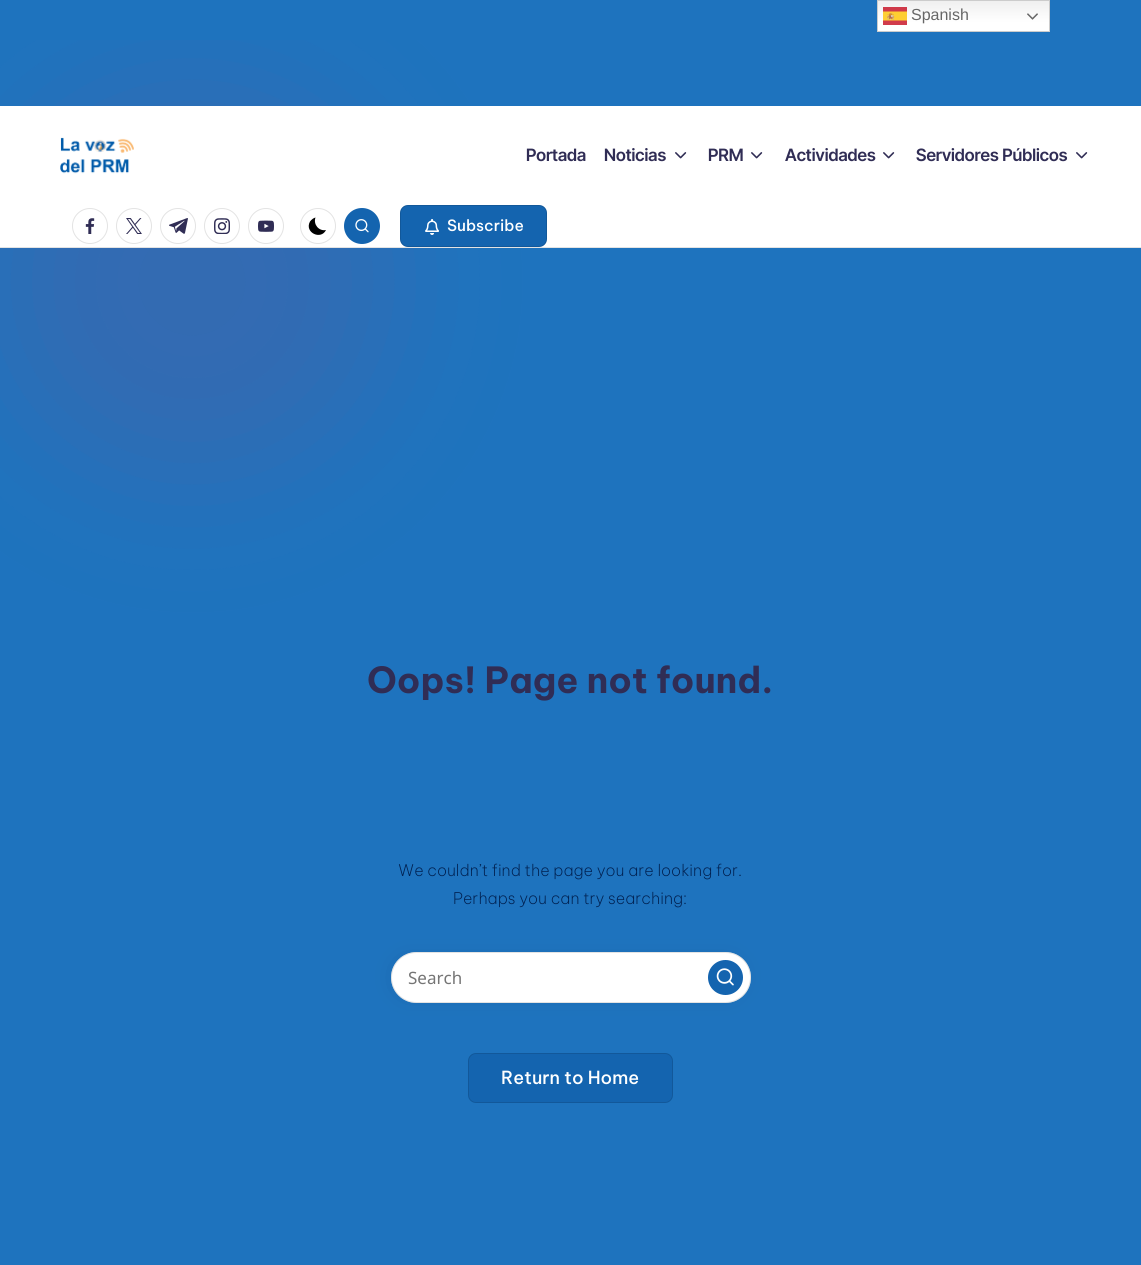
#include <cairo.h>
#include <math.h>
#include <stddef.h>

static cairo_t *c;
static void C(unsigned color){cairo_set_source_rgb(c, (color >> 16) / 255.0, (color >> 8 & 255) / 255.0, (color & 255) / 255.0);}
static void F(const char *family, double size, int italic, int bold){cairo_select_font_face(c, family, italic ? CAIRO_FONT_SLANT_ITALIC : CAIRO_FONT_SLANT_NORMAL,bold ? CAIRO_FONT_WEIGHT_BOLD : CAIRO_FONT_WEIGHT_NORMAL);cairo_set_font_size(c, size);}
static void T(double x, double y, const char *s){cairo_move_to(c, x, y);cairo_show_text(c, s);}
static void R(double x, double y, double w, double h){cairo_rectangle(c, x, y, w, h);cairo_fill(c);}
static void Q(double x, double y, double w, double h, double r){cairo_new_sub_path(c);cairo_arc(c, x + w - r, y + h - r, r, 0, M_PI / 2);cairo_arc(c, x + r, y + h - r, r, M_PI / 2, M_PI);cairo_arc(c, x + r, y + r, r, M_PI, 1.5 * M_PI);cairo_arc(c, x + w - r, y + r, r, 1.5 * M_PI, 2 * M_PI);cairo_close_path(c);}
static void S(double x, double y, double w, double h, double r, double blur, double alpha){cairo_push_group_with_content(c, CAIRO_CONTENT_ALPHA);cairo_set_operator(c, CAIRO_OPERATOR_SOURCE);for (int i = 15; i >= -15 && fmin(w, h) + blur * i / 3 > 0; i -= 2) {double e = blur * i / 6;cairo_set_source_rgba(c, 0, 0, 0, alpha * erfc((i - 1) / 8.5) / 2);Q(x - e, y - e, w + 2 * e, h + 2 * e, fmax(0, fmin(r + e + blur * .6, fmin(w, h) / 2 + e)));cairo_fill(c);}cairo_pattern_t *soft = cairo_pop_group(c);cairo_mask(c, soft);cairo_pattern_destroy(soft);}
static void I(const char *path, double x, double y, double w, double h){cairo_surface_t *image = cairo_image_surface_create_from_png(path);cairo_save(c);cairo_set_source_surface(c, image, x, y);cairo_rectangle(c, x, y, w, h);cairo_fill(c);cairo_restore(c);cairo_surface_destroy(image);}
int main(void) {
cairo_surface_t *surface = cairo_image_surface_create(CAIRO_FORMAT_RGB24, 1141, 1265);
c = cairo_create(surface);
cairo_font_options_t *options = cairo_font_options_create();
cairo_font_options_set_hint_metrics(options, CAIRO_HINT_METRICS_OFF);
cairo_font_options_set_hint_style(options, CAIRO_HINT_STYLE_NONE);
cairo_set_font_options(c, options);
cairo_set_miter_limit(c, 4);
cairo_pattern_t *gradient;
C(0x1e73be);
cairo_paint(c);
gradient = cairo_pattern_create_linear(964,0,964,32);
cairo_pattern_add_color_stop_rgba(gradient,0,0.937,0.937,0.937,1);
cairo_pattern_add_color_stop_rgba(gradient,.7,1,1,1,1);
cairo_set_source(c,gradient);
cairo_pattern_destroy(gradient);
R(878,1,171,30);
cairo_rectangle(c,877.5,.5,172,31);
C(0xcccccc);
cairo_set_line_width(c,1);
cairo_stroke(c);
I("1.png",883,7,24,18);
F("Liberation Sans",16,0,0);
C(0x666666);
T(911,20,"Spanish");
I("2.png",1027,13,11,7);
cairo_save(c);
cairo_rectangle(c,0,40,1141,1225);
cairo_clip(c);
C(0x336bb2);
S(0,90,384,384,192,64,1);
cairo_restore(c);
C(0xffffff);
R(0,106,1141,141);
C(0xe3e3e3);
R(0,247,1141,1);
I("3.png",60,137,74,37);
F("Inter Tight SemiBold",17,0,0);
C(0x302d55);
T(526,161,"Portada");
T(604,161,"Noticias");
I("4.png",675,152,12,7);
T(708,161,"PRM");
I("4.png",751,152,12,7);
T(785,161,"Actividades");
I("4.png",883,152,12,7);
T(916,161,"Servidores Públicos");
I("4.png",1076,152,12,7);
cairo_arc(c,90,226,17.5,0,2 * M_PI);
C(0xe3e3e3);
cairo_stroke(c);
I("5.png",85,218,10,16);
cairo_arc(c,134,226,17.5,0,2 * M_PI);
cairo_stroke(c);
I("6.png",126,218,16,16);
cairo_arc(c,178,226,17.5,0,2 * M_PI);
cairo_stroke(c);
I("7.png",169,218,19,16);
cairo_arc(c,222,226,17.5,0,2 * M_PI);
cairo_stroke(c);
I("8.png",214,218,16,16);
cairo_arc(c,266,226,17.5,0,2 * M_PI);
cairo_stroke(c);
I("9.png",258,220,16,12);
cairo_arc(c,318,226,17.5,0,2 * M_PI);
cairo_stroke(c);
C(0x000000);
cairo_new_path(c);
cairo_move_to(c,326,230);
cairo_curve_to(c,319,231.5,313,224.5,315.5,217.5);
cairo_curve_to(c,313.5,218,311.5,219.5,310,221.5);
cairo_curve_to(c,304,232.5,321,240.5,326,230);
cairo_close_path(c);
cairo_fill(c);
C(0x1464af);
cairo_arc(c,362,226,18,0,2 * M_PI);
cairo_fill(c);
I("10.png",355,219,14,14);
Q(400,205,147,42,8);
cairo_fill(c);
Q(400.5,205.5,146,41,7.5);
cairo_set_source_rgba(c,0,0,0,0.12);
cairo_stroke(c);
I("11.png",425,219,14,16);
F("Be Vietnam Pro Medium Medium",15.5,0,0);
C(0xffffff);
T(447,231,"Subscribe");
F("Be Vietnam Pro",36,0,1);
C(0x302d55);
T(367,693,"Oops! Page not found.");
F("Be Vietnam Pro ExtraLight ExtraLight",16,0,0);
C(0x002050);
T(398,876,"We couldn’t find the page you are looking for.");
T(453,904,"Perhaps you can try searching:");
C(0x000000);
S(404,968,328,19,9.5,16,.15);
C(0xffffff);
Q(391,952,360,51,25.5);
cairo_fill(c);
Q(391.5,952.5,359,50,25);
cairo_set_source_rgba(c,0.725,0.725,0.725,0.4);
cairo_stroke(c);
F("Noto Sans",17,0,0);
C(0x757575);
T(408,984,"Search");
C(0x1464af);
cairo_new_path(c);
cairo_arc(c,725.5,977.5,17.5,0,2 * M_PI);
cairo_fill(c);
I("12.png",716,968,18,18);
Q(468,1053,205,50,8);
cairo_fill(c);
Q(468.5,1053.5,204,49,7.5);
cairo_set_source_rgba(c,0,0,0,0.12);
cairo_stroke(c);
F("Be Vietnam Pro Medium Medium",18,0,0);
C(0xffffff);
T(501,1084,"Return to Home");
cairo_surface_write_to_png(surface, "o.png");
cairo_font_options_destroy(options);
cairo_destroy(c);
cairo_surface_destroy(surface);
return 0;
}
